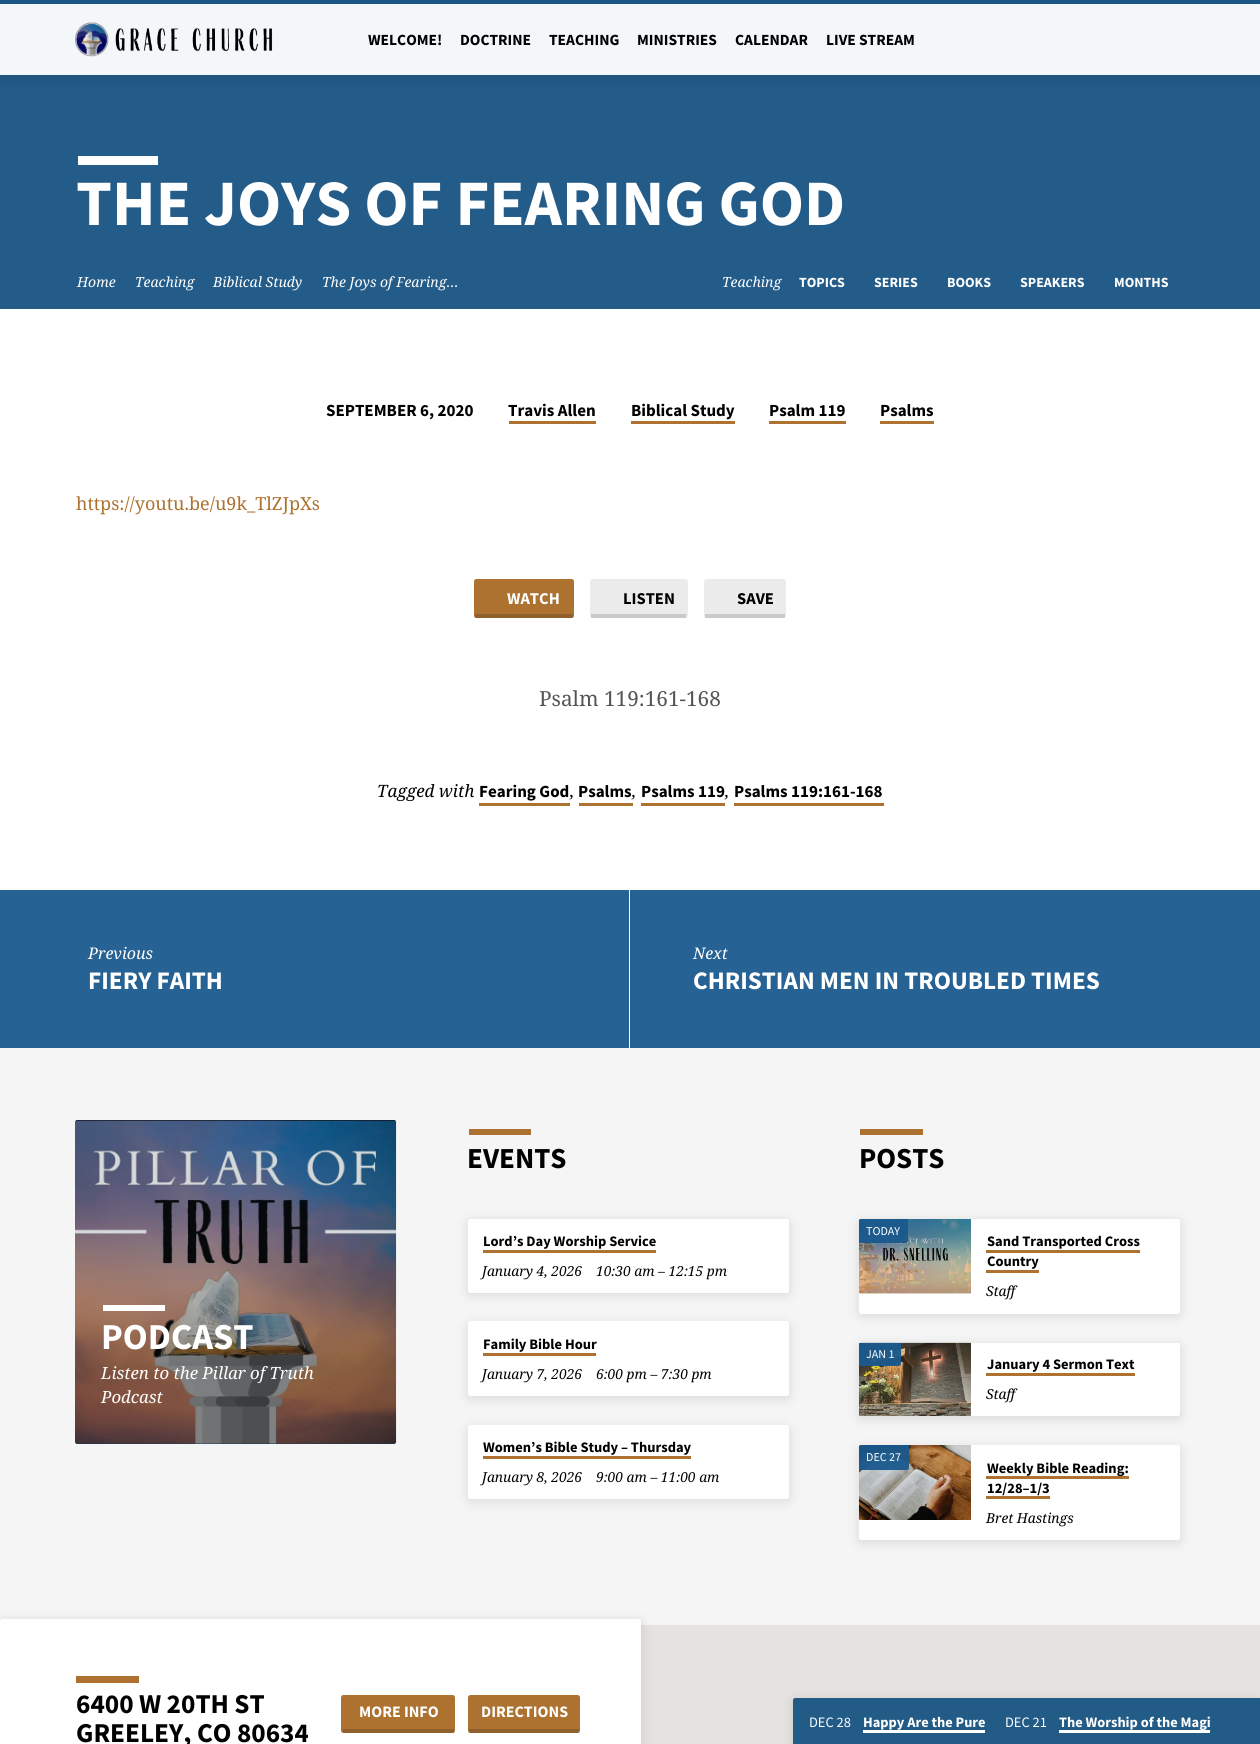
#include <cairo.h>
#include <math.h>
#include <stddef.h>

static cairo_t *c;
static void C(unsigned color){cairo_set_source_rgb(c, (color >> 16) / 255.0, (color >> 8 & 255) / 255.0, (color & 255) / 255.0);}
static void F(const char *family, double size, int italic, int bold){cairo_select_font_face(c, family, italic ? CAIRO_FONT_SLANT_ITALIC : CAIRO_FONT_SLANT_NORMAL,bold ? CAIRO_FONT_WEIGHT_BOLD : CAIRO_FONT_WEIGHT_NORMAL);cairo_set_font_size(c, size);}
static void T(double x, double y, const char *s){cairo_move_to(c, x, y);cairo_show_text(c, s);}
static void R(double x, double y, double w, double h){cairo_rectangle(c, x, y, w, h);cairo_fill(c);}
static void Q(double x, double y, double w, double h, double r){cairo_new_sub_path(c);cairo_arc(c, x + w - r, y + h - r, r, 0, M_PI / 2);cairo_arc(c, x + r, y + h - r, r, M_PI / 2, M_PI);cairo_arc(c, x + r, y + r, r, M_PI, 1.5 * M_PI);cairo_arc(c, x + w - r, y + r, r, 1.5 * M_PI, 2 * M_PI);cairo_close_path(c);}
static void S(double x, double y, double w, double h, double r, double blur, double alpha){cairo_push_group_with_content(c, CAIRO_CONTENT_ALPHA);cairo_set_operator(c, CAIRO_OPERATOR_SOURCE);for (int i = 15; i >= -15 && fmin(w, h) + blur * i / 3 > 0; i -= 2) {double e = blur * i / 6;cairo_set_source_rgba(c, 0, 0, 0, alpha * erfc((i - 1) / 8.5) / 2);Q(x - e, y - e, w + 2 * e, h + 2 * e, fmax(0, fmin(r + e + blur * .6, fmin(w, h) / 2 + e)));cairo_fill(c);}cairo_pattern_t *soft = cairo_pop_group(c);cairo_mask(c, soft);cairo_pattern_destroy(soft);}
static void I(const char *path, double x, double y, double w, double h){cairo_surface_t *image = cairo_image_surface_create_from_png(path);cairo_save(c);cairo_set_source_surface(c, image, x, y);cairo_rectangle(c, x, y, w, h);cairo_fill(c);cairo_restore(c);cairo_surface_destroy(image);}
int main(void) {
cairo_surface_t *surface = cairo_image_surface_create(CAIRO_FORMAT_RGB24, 1260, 1744);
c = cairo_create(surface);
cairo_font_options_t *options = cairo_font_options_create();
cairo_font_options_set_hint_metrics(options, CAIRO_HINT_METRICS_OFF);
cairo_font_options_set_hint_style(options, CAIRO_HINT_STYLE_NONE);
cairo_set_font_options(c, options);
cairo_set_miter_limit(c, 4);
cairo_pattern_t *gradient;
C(0xffffff);
cairo_paint(c);
C(0x1b5a8d);
R(0,0,1260,4);
C(0xf4f7f9);
R(0,4,1260,71);
C(0x235b89);
R(0,75,1260,234);
cairo_save(c);
cairo_set_fill_rule(c,CAIRO_FILL_RULE_EVEN_ODD);
cairo_new_path(c);
cairo_move_to(c,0,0);
cairo_line_to(c,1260,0);
cairo_line_to(c,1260,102);
cairo_line_to(c,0,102);
cairo_close_path(c);
cairo_move_to(c,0,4);
cairo_line_to(c,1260,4);
cairo_line_to(c,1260,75);
cairo_line_to(c,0,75);
cairo_close_path(c);
cairo_clip(c);
C(0x000000);
S(0,6,1260,72,0,7.5,.14);
cairo_restore(c);
I("1.png",75,22,198,35);
F("Source Sans Pro",15.5,0,1);
C(0x000000);
T(368,45,"WELCOME!");
T(460,45,"DOCTRINE");
T(549,45,"TEACHING");
T(637,45,"MINISTRIES");
T(735,45,"CALENDAR");
T(826,45,"LIVE STREAM");
C(0xffffff);
R(78,156,80,9);
F("Source Sans Pro",64.75,0,1);
T(76,225,"THE JOYS OF FEARING GOD");
F("Noto Serif",14,1,0);
T(77,287,"Home");
T(135,287,"Teaching");
T(213,287,"Biblical Study");
T(322,287,"The Joys of Fearing…");
T(722,287,"Teaching");
F("Source Sans Pro",14,0,1);
T(799,287,"TOPICS");
T(874,287,"SERIES");
T(947,287,"BOOKS");
T(1020,287,"SPEAKERS");
T(1114,287,"MONTHS");
F("Source Sans Pro",17,0,1);
C(0x000000);
T(326,416,"SEPTEMBER 6, 2020");
T(508,416,"Travis Allen");
C(0xad722f);
R(509,421,87,3);
C(0x000000);
T(631,416,"Biblical Study");
C(0xad722f);
R(631,421,104,3);
C(0x000000);
T(769,416,"Psalm 119");
C(0xad722f);
R(769,421,77,3);
C(0x000000);
T(880,416,"Psalms");
C(0xad722f);
R(880,421,54,3);
F("Noto Serif",18,0,0);
T(76,510,"https://youtu.be/u9k_TlZJpXs");
Q(474,579,100,39,2.5);
cairo_fill(c);
cairo_set_source_rgba(c,0.196,0.196,0.196,0.25);
R(475,614,98,4);
F("Source Sans Pro",16.5,0,1);
C(0xffffff);
T(507,604,"WATCH");
C(0xebebeb);
Q(590,579,98,39,2.5);
cairo_fill(c);
cairo_set_source_rgba(c,0.196,0.196,0.196,0.18);
R(591,614,95,4);
C(0x000000);
T(623,604,"LISTEN");
C(0xebebeb);
Q(704,579,82,39,2.5);
cairo_fill(c);
cairo_set_source_rgba(c,0.196,0.196,0.196,0.18);
R(705,614,80,4);
C(0x000000);
T(737,604,"SAVE");
F("Noto Serif",20.75,0,0);
C(0x555555);
T(539,706,"Psalm 119:161-168");
F("Noto Serif",17,1,0);
C(0x000000);
T(377,797,"Tagged with");
F("Source Sans Pro",17,0,1);
T(479,797,"Fearing God");
C(0xad722f);
R(479,803,91,3);
F("Noto Serif",17,1,0);
C(0x000000);
T(570,797,",");
F("Source Sans Pro",17,0,1);
T(578,797,"Psalms");
C(0xad722f);
R(579,803,54,3);
F("Noto Serif",17,1,0);
C(0x000000);
T(632,797,",");
F("Source Sans Pro",17,0,1);
T(641,797,"Psalms 119");
C(0xad722f);
R(641,803,84,3);
F("Noto Serif",17,1,0);
C(0x000000);
T(725,797,",");
F("Source Sans Pro",17,0,1);
T(734,797,"Psalms 119:161-168");
C(0xad722f);
R(734,803,150,3);
C(0x266293);
R(0,890,1260,158);
C(0xfafafa);
R(629,890,1,158);
F("Noto Serif",16,1,0);
C(0xffffff);
T(88,959,"Previous");
F("Source Sans Pro",25.25,0,1);
T(88,989,"FIERY FAITH");
F("Noto Serif",16,1,0);
T(693,959,"Next");
F("Source Sans Pro",25.25,0,1);
T(693,989,"CHRISTIAN MEN IN TROUBLED TIMES");
C(0xf5f5f5);
R(0,1048,1260,577);
C(0x266292);
Q(75,1120,321,324,2.5);
cairo_fill(c);
I("2.png",75,1120,322,324);
cairo_set_source_rgba(c,0,0,0,0.1);
Q(75,1120,321,324,2.5);
cairo_fill(c);
gradient = cairo_pattern_create_linear(236,1120,236,1444);
cairo_pattern_add_color_stop_rgba(gradient,0,1,1,1,0);
cairo_pattern_add_color_stop_rgba(gradient,.36,0,0,0,0);
cairo_pattern_add_color_stop_rgba(gradient,.76,0,0,0,.35);
cairo_pattern_add_color_stop_rgba(gradient,1,0,0,0,.35);
cairo_set_source(c,gradient);
cairo_pattern_destroy(gradient);
Q(75,1120,321,324,2.5);
cairo_fill(c);
C(0xffffff);
R(103,1305,62,6);
F("Source Sans Pro",36.5,0,1);
T(101,1349,"PODCAST");
F("Noto Serif",16.8,1,0);
T(101,1379,"Listen to the Pillar of Truth");
T(101,1403,"Podcast");
C(0xad722f);
R(469,1129,62,6);
F("Source Sans Pro",29,0,1);
C(0x000000);
T(467,1168,"EVENTS");
C(0x000000);
S(468,1221,321,74,2.5,6,.12);
C(0xffffff);
Q(468,1219,321,74,2.5);
cairo_fill(c);
F("Source Sans Pro",14.5,0,1);
C(0x000000);
T(483,1246,"Lord’s Day Worship Service");
C(0xad722f);
R(483,1250,173,3);
F("Noto Serif",13.75,1,0);
C(0x000000);
T(482,1276,"January 4, 2026");
T(596,1276,"10:30 am – 12:15 pm");
C(0x000000);
S(468,1324,321,75,2.5,6,.12);
C(0xffffff);
Q(468,1321,321,75,2.5);
cairo_fill(c);
F("Source Sans Pro",14.5,0,1);
C(0x000000);
T(483,1349,"Family Bible Hour");
C(0xad722f);
R(483,1353,113,3);
F("Noto Serif",13.75,1,0);
C(0x000000);
T(482,1379,"January 7, 2026");
T(596,1379,"6:00 pm – 7:30 pm");
C(0x000000);
S(468,1428,321,73,2.5,6,.12);
C(0xffffff);
Q(468,1425,321,74,2.5);
cairo_fill(c);
F("Source Sans Pro",14.5,0,1);
C(0x000000);
T(483,1452,"Women’s Bible Study – Thursday");
C(0xad722f);
R(483,1456,208,3);
F("Noto Serif",13.75,1,0);
C(0x000000);
T(482,1482,"January 8, 2026");
T(596,1482,"9:00 am – 11:00 am");
C(0xad722f);
R(860,1129,63,6);
F("Source Sans Pro",29,0,1);
C(0x000000);
T(859,1168,"POSTS");
C(0x000000);
S(859,1221,321,95,2.5,6,.12);
C(0xffffff);
Q(859,1219,321,95,2.5);
cairo_fill(c);
I("3.png",859,1219,112,75);
cairo_set_source_rgba(c,0.106,0.353,0.553,0.95);
cairo_new_path(c);
cairo_move_to(c,861.5,1219);
cairo_line_to(c,908,1219);
cairo_line_to(c,908,1240.5);
cairo_curve_to(c,908,1242,907,1243,905.5,1243);
cairo_line_to(c,859,1243);
cairo_line_to(c,859,1221.5);
cairo_curve_to(c,859,1220,860,1219,861.5,1219);
cairo_close_path(c);
cairo_fill(c);
F("Source Sans Pro",12,0,0);
C(0xffffff);
T(866,1235,"TODAY");
F("Source Sans Pro",14.5,0,1);
C(0x000000);
T(987,1246,"Sand Transported Cross");
C(0xad722f);
R(986,1250,154,3);
C(0x000000);
T(987,1266,"Country");
C(0xad722f);
R(986,1270,53,3);
F("Noto Serif",13.75,1,0);
C(0x000000);
T(986,1296,"Staff");
C(0x000000);
S(859,1345,321,74,2.5,6,.12);
C(0xffffff);
Q(859,1343,321,73,2.5);
cairo_fill(c);
I("4.png",859,1342,112,74);
cairo_set_source_rgba(c,0.106,0.353,0.553,0.95);
cairo_new_path(c);
cairo_move_to(c,861.5,1343);
cairo_line_to(c,901,1343);
cairo_line_to(c,901,1363.5);
cairo_curve_to(c,901,1365,900,1366,898.5,1366);
cairo_line_to(c,859,1366);
cairo_line_to(c,859,1345.5);
cairo_curve_to(c,859,1344,860,1343,861.5,1343);
cairo_close_path(c);
cairo_fill(c);
F("Source Sans Pro",12,0,0);
C(0xffffff);
T(866,1358,"JAN 1");
F("Source Sans Pro",14.5,0,1);
C(0x000000);
T(987,1369,"January 4 Sermon Text");
C(0xad722f);
R(986,1373,149,3);
F("Noto Serif",13.75,1,0);
C(0x000000);
T(986,1399,"Staff");
C(0x000000);
S(859,1448,321,95,2.5,6,.12);
C(0xffffff);
Q(859,1445,321,95,2.5);
cairo_fill(c);
I("5.png",859,1445,112,75);
cairo_set_source_rgba(c,0.106,0.353,0.553,0.95);
cairo_new_path(c);
cairo_move_to(c,861.5,1445);
cairo_line_to(c,909,1445);
cairo_line_to(c,909,1467.5);
cairo_curve_to(c,909,1469,908,1470,906.5,1470);
cairo_line_to(c,859,1470);
cairo_line_to(c,859,1447.5);
cairo_curve_to(c,859,1446,860,1445,861.5,1445);
cairo_close_path(c);
cairo_fill(c);
F("Source Sans Pro",12,0,0);
C(0xffffff);
T(866,1461,"DEC 27");
C(0xad722f);
R(986,1476,143,3);
F("Source Sans Pro",14.5,0,1);
C(0x000000);
T(987,1473,"Weekly Bible Reading:");
T(987,1493,"12/28–1/3");
C(0xad722f);
R(986,1496,64,3);
F("Noto Serif",13.75,1,0);
C(0x000000);
T(986,1523,"Bret Hastings");
C(0xe5e3df);
R(641,1625,619,119);
C(0x000000);
S(0,1621,641,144,2.5,6,.12);
C(0xffffff);
Q(0,1619,641,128,2.5);
cairo_fill(c);
C(0xad722f);
R(76,1676,63,7);
F("Source Sans Pro",27.25,0,1);
C(0x000000);
T(76,1713,"6400 W 20TH ST");
T(76,1742,"GREELEY, CO 80634");
C(0xad722f);
Q(341,1695,114,38,2.5);
cairo_fill(c);
cairo_set_source_rgba(c,0.196,0.196,0.196,0.25);
R(343,1729,111,4);
F("Source Sans Pro",16,0,1);
C(0xffffff);
T(359,1717,"MORE INFO");
C(0xad722f);
Q(468,1695,112,38,2.5);
cairo_fill(c);
cairo_set_source_rgba(c,0.196,0.196,0.196,0.25);
R(469,1729,110,4);
C(0xffffff);
T(481,1717,"DIRECTIONS");
C(0x000000);
S(793,1700,467,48,2.5,6,.12);
C(0x256191);
cairo_new_path(c);
cairo_move_to(c,795.5,1698);
cairo_line_to(c,1260,1698);
cairo_line_to(c,1260,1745);
cairo_line_to(c,793,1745);
cairo_line_to(c,793,1700.5);
cairo_curve_to(c,793,1699,794,1698,795.5,1698);
cairo_close_path(c);
cairo_fill(c);
cairo_set_source_rgba(c,0,0,0,0.07);
R(793,1698,467,46);
F("Source Sans Pro",14.4,0,0);
C(0xffffff);
T(809,1727,"DEC 28");
F("Source Sans Pro",14.4,0,1);
T(863,1727,"Happy Are the Pure");
R(863,1730,122,3);
F("Source Sans Pro",14.4,0,0);
T(1005,1727,"DEC 21");
R(1059,1730,151,3);
F("Source Sans Pro",14.4,0,1);
T(1059,1727,"The Worship of the Magi");
cairo_surface_write_to_png(surface, "o.png");
cairo_font_options_destroy(options);
cairo_destroy(c);
cairo_surface_destroy(surface);
return 0;
}
